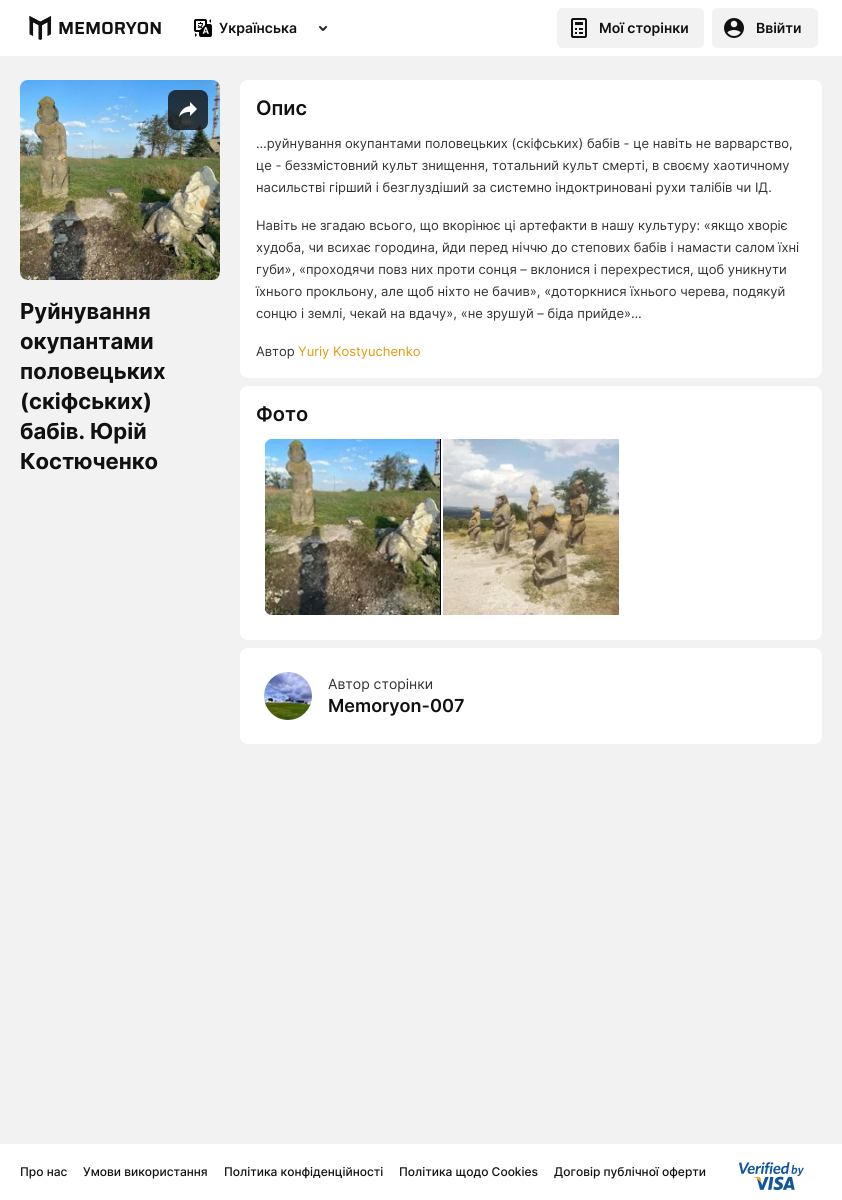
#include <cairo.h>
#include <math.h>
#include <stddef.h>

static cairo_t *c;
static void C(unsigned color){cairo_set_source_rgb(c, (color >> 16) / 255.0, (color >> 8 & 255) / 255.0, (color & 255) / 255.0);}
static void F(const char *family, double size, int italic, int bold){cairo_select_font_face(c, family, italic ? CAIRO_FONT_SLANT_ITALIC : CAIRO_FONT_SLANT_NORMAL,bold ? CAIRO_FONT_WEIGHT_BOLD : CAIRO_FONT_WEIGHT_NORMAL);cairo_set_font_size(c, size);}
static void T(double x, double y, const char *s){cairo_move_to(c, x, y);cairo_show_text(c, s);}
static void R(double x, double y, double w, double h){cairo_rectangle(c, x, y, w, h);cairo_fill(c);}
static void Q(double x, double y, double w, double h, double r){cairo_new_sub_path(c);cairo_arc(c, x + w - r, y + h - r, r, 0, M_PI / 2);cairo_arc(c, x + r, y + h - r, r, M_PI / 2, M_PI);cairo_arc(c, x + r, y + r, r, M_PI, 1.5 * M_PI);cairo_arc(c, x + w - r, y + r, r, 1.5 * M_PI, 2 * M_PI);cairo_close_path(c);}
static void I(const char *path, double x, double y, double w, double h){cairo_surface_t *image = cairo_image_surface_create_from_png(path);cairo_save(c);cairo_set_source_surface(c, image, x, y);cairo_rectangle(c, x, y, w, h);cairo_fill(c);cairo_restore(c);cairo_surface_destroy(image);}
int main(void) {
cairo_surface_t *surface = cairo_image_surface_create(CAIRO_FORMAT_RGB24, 842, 1200);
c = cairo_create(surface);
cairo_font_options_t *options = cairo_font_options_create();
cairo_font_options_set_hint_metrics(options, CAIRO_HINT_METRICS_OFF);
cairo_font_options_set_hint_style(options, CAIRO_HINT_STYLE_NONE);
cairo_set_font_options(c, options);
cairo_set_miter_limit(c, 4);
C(0xf2f2f2);
cairo_paint(c);
C(0xffffff);
R(0,0,842,56);
I("1.png",29,16,132,24);
I("2.png",194,19,18,18);
F("Inter SemiBold",14,0,0);
C(0x111111);
T(219,33,"Українська");
I("3.png",319,26,8,5);
C(0xf2f2f2);
Q(557,8,147,40,6);
cairo_fill(c);
I("4.png",571,18,16,20);
C(0x111111);
T(599,33,"Мої сторінки");
C(0xf2f2f2);
Q(712,8,106,40,6);
cairo_fill(c);
I("5.png",724,18,20,20);
C(0x111111);
T(756,33,"Ввійти");
I("6.png",20,80,200,200);
cairo_set_source_rgba(c,0.067,0.067,0.067,0.8);
Q(168,90,40,40,8);
cairo_fill(c);
I("7.png",179,102,18,15);
F("Inter",22,0,1);
C(0x111111);
T(20,319,"Руйнування");
T(20,349,"окупантами");
T(20,379,"половецьких");
T(20,409,"(скіфських)");
T(20,439,"бабів. Юрій");
T(20,469,"Костюченко");
C(0xffffff);
Q(240,80,582,298,8);
cairo_fill(c);
F("Inter SemiBold",20,0,0);
C(0x111111);
T(256,115,"Опис");
F("Inter",13,0,0);
C(0x333333);
T(256,148,"…руйнування окупантами половецьких (скіфських) бабів - це навіть не варварство,");
T(256,170,"це - беззмістовний культ знищення, тотальний культ смерті, в своєму хаотичному");
T(256,192,"насильстві гірший і безглуздіший за системно індоктриновані рухи талібів чи ІД.");
T(256,230,"Навіть не згадаю всього, що вкорінює ці артефакти в нашу культуру: «якщо хворіє");
T(256,252,"худоба, чи всихає городина, йди перед ніччю до степових бабів і намасти салом їхні");
T(256,274,"губи», «проходячи повз них проти сонця – вклонися і перехрестися, щоб уникнути");
T(256,296,"їхнього прокльону, але щоб ніхто не бачив», «доторкнися їхнього черева, подякуй");
T(256,318,"сонцю і землі, чекай на вдачу», «не зрушуй – біда прийде»…");
T(256,356,"Автор");
C(0xe79708);
T(298,356,"Yuriy Kostyuchenko");
C(0xffffff);
Q(240,386,582,254,8);
cairo_fill(c);
F("Inter SemiBold",20,0,0);
C(0x111111);
T(256,421,"Фото");
I("8.png",265,439,176,176);
I("9.png",443,439,176,176);
C(0xffffff);
Q(240,648,582,96,8);
cairo_fill(c);
I("10.png",264,672,48,48);
F("Inter",14,0,0);
C(0x333333);
T(328,689,"Автор сторінки");
F("Inter SemiBold",18,0,0);
C(0x111111);
T(328,712,"Memoryon-007");
C(0xffffff);
R(0,1144,842,56);
F("Inter Medium",12,0,0);
C(0x111111);
T(20,1176,"Про нас");
T(83,1176,"Умови використання");
T(224,1176,"Політика конфіденційності");
T(399,1176,"Політика щодо Cookies");
T(554,1176,"Договір публічної оферти");
I("11.png",739,1162,65,28);
cairo_surface_write_to_png(surface, "o.png");
cairo_font_options_destroy(options);
cairo_destroy(c);
cairo_surface_destroy(surface);
return 0;
}
